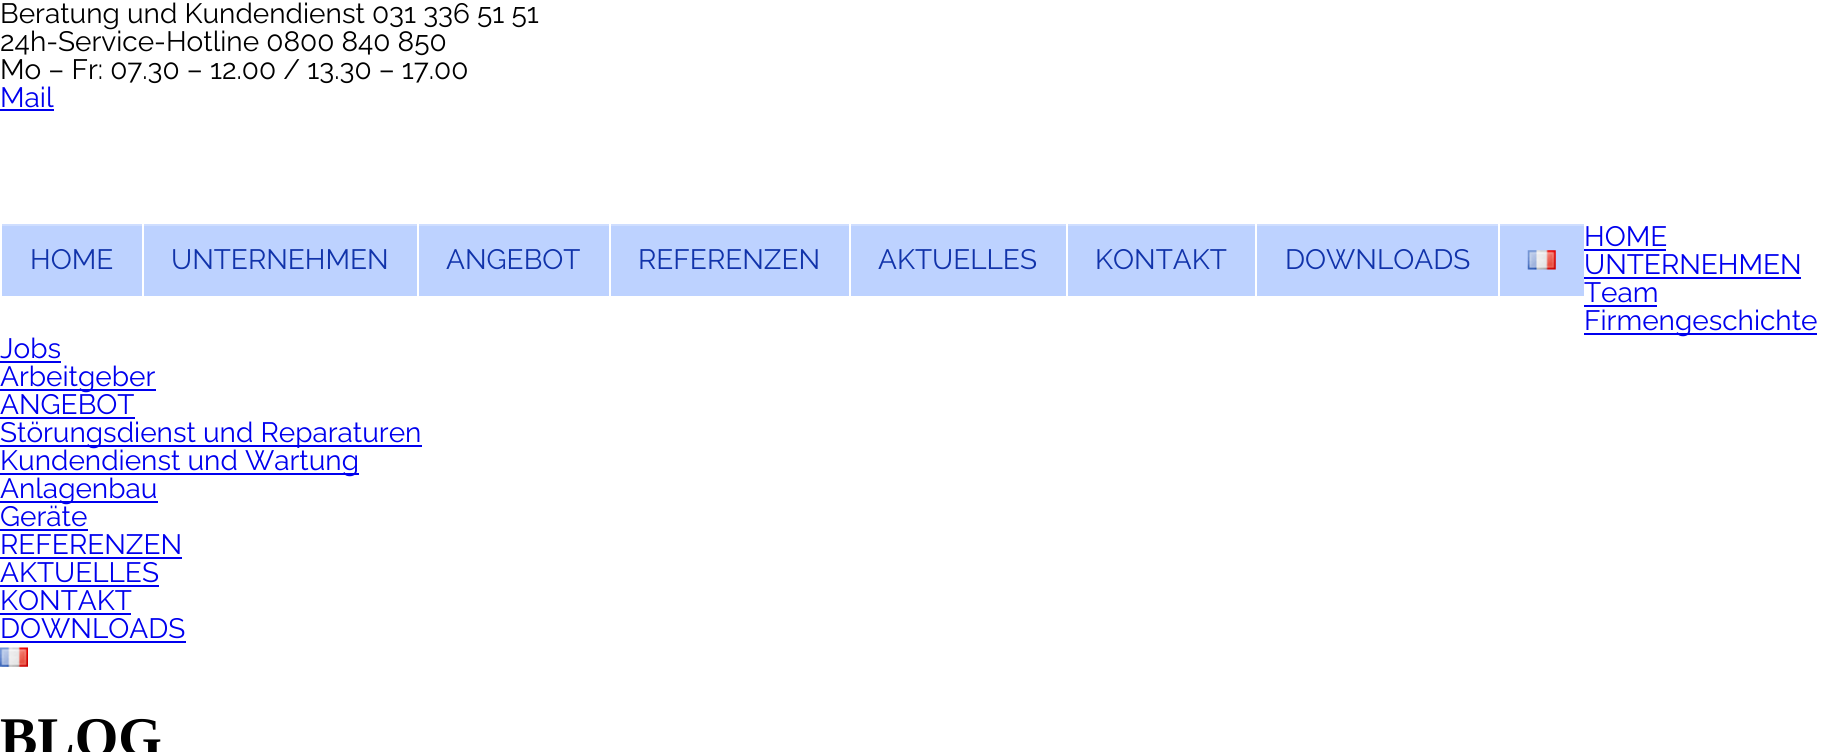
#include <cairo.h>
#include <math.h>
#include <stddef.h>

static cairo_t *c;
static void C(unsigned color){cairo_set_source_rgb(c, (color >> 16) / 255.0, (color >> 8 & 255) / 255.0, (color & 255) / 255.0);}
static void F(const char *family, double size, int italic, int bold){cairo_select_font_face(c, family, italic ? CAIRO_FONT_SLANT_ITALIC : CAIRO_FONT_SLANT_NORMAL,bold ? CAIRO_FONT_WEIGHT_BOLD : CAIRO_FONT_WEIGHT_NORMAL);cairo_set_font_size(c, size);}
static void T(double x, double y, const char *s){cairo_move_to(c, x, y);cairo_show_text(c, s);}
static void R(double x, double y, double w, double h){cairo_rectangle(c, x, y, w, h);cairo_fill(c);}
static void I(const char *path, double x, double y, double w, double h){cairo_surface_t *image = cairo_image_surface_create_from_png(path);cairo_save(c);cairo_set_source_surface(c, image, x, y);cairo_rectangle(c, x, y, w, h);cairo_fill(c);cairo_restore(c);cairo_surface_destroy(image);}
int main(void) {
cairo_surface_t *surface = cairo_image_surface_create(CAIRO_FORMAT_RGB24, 1832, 752);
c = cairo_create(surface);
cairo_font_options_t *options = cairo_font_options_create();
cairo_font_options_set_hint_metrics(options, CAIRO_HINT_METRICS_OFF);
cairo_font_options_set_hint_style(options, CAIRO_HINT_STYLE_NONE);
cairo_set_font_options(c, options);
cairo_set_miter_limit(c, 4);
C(0xffffff);
cairo_paint(c);
F("Raleway",28,0,0);
C(0x000000);
T(0,23,"Beratung und Kundendienst 031 336 51 51");
T(0,51,"24h-Service-Hotline 0800 840 850");
T(0,79,"Mo – Fr: 07.30 – 12.00 / 13.30 – 17.00");
C(0x0000ee);
T(0,107,"Mail");
R(0,109,54,2);
T(1584,246,"HOME");
R(1584,249,82,2);
T(1584,274,"UNTERNEHMEN");
R(1584,277,217,2);
T(1584,302,"Team");
R(1584,305,73,2);
R(1584,333,233,2);
T(1584,330,"Firmengeschichte");
T(0,358,"Jobs");
R(0,361,61,2);
R(0,389,156,2);
T(0,386,"Arbeitgeber");
T(0,414,"ANGEBOT");
R(0,417,135,2);
R(0,445,422,2);
T(0,442,"Störungsdienst und Reparaturen");
R(0,473,359,2);
T(0,470,"Kundendienst und Wartung");
R(0,501,158,2);
T(0,498,"Anlagenbau");
T(0,526,"Geräte");
R(0,529,88,2);
T(0,554,"REFERENZEN");
R(0,557,182,2);
T(0,582,"AKTUELLES");
R(0,585,159,2);
T(0,610,"KONTAKT");
R(0,613,131,2);
T(0,638,"DOWNLOADS");
R(0,641,186,2);
I("1.png",0,647,28,20);
C(0xbdd2ff);
R(2,226,140,70);
C(0xcfdeff);
R(0,224,1584,2);
C(0xffffff);
R(0,224,2,2);
C(0x1133aa);
T(30,269,"HOME");
C(0xbdd2ff);
R(144,226,273,70);
C(0xffffff);
R(142,224,2,2);
C(0x1133aa);
T(171,269,"UNTERNEHMEN");
C(0xbdd2ff);
R(419,226,190,70);
C(0xffffff);
R(417,224,2,2);
C(0x1133aa);
T(446,269,"ANGEBOT");
C(0xbdd2ff);
R(611,226,238,70);
C(0xffffff);
R(609,224,2,2);
C(0x1133aa);
T(638,269,"REFERENZEN");
C(0xbdd2ff);
R(851,226,215,70);
C(0xffffff);
R(849,224,2,2);
C(0x1133aa);
T(878,269,"AKTUELLES");
C(0xbdd2ff);
R(1068,226,187,70);
C(0xffffff);
R(1066,224,2,2);
C(0x1133aa);
T(1095,269,"KONTAKT");
C(0xbdd2ff);
R(1257,226,241,70);
C(0xffffff);
R(1255,224,2,2);
C(0x1133aa);
T(1285,269,"DOWNLOADS");
C(0xbdd2ff);
R(1500,226,84,70);
C(0xffffff);
R(1498,224,2,2);
I("2.png",1527,250,29,20);
F("Liberation Serif",56,0,1);
C(0x000000);
T(0,756,"BLOG");
cairo_surface_write_to_png(surface, "o.png");
cairo_font_options_destroy(options);
cairo_destroy(c);
cairo_surface_destroy(surface);
return 0;
}
